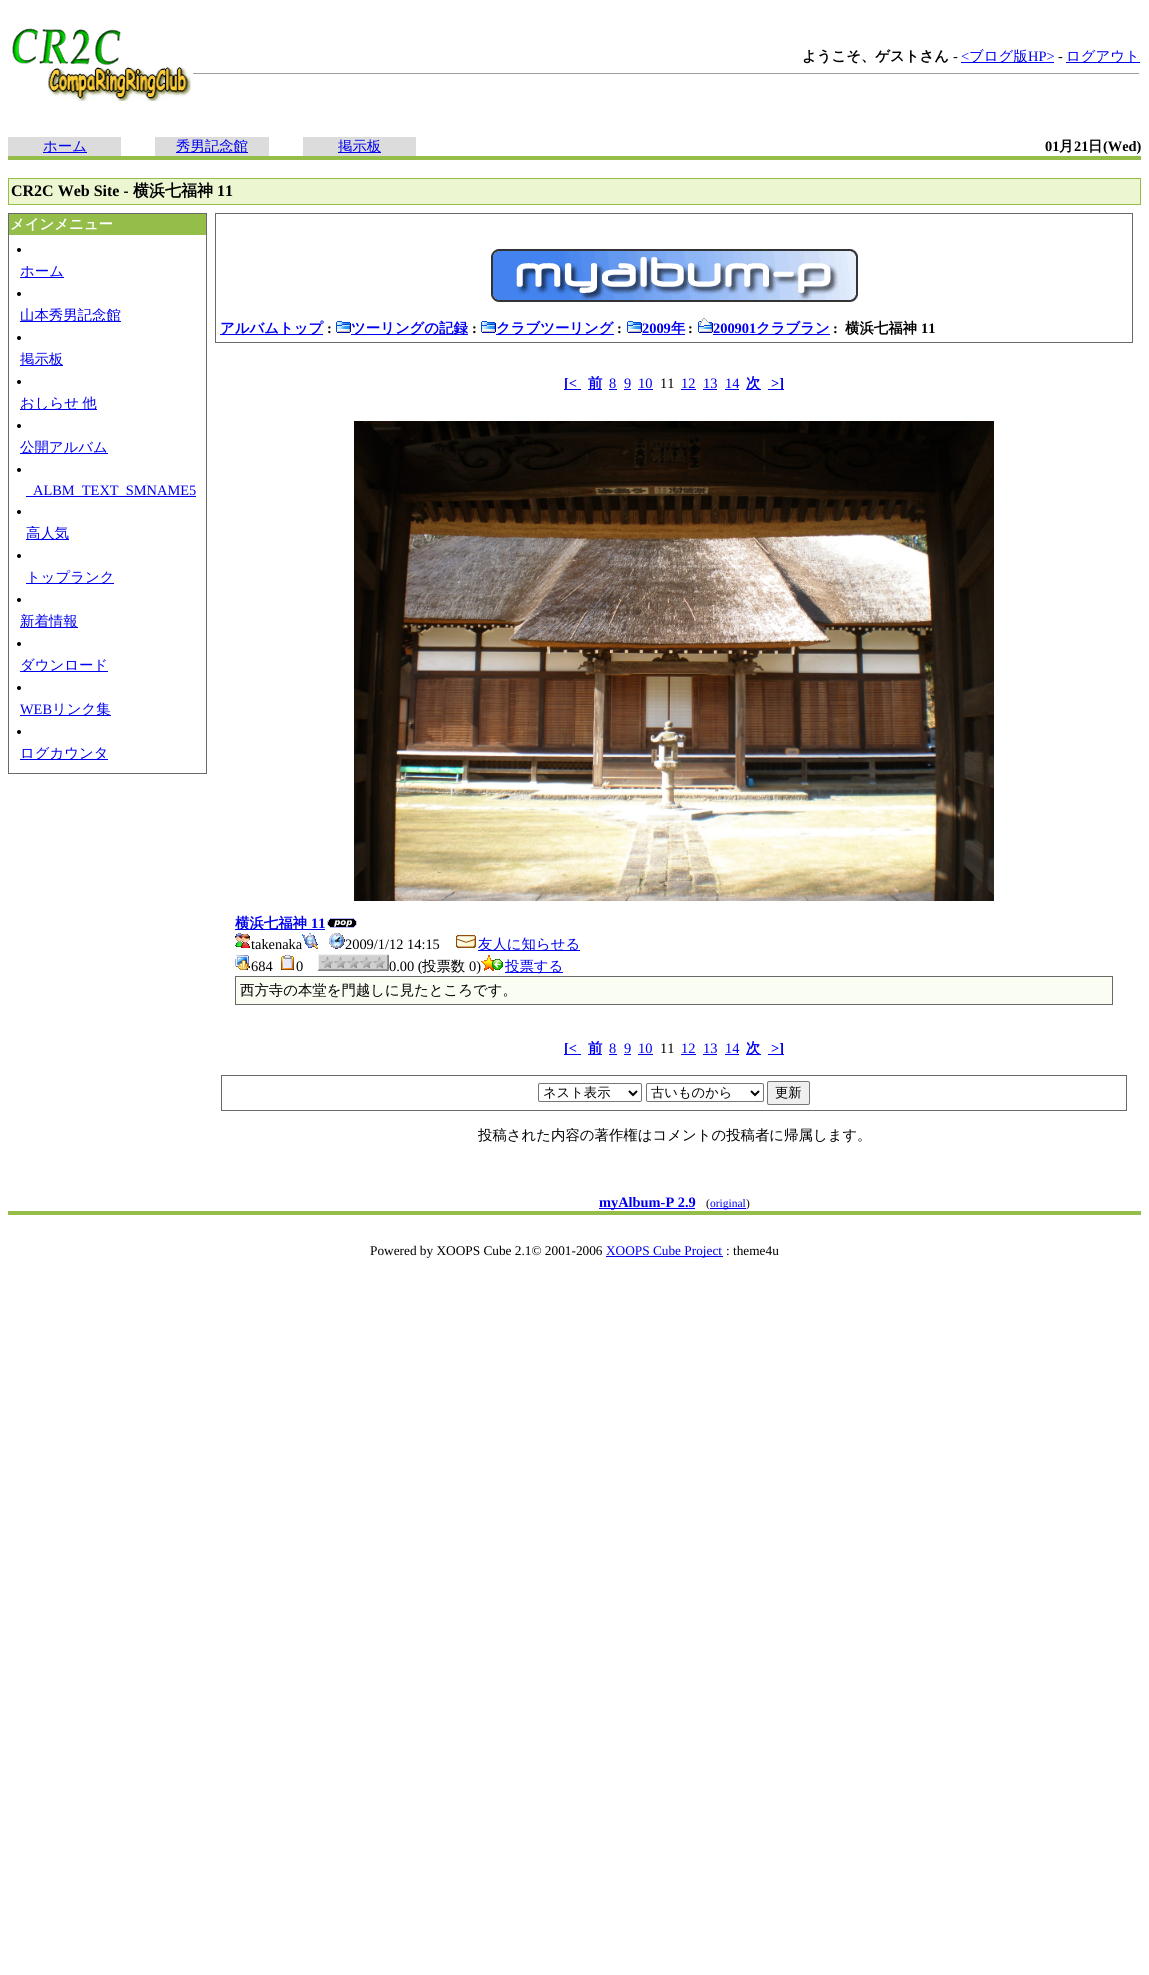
#include <cairo.h>
#include <math.h>
#include <stddef.h>

static cairo_t *c;
static void C(unsigned color){cairo_set_source_rgb(c, (color >> 16) / 255.0, (color >> 8 & 255) / 255.0, (color & 255) / 255.0);}
static void F(const char *family, double size, int italic, int bold){cairo_select_font_face(c, family, italic ? CAIRO_FONT_SLANT_ITALIC : CAIRO_FONT_SLANT_NORMAL,bold ? CAIRO_FONT_WEIGHT_BOLD : CAIRO_FONT_WEIGHT_NORMAL);cairo_set_font_size(c, size);}
static void T(double x, double y, const char *s){cairo_move_to(c, x, y);cairo_show_text(c, s);}
static void L(double x, double y, const char *s, double letter, double word){cairo_move_to(c, x, y);while (*s) {char ch[5] = {0};int n = 0;do ch[n++] = *s++; while ((*s & 0xC0) == 0x80);cairo_show_text(c, ch);cairo_rel_move_to(c, letter + word * (*ch == ' '), 0);}}
static void R(double x, double y, double w, double h){cairo_rectangle(c, x, y, w, h);cairo_fill(c);}
static void Q(double x, double y, double w, double h, double r){cairo_new_sub_path(c);cairo_arc(c, x + w - r, y + h - r, r, 0, M_PI / 2);cairo_arc(c, x + r, y + h - r, r, M_PI / 2, M_PI);cairo_arc(c, x + r, y + r, r, M_PI, 1.5 * M_PI);cairo_arc(c, x + w - r, y + r, r, 1.5 * M_PI, 2 * M_PI);cairo_close_path(c);}
static void I(const char *path, double x, double y, double w, double h){cairo_surface_t *image = cairo_image_surface_create_from_png(path);cairo_save(c);cairo_set_source_surface(c, image, x, y);cairo_rectangle(c, x, y, w, h);cairo_fill(c);cairo_restore(c);cairo_surface_destroy(image);}
int main(void) {
cairo_surface_t *surface = cairo_image_surface_create(CAIRO_FORMAT_RGB24, 1149, 1975);
c = cairo_create(surface);
cairo_font_options_t *options = cairo_font_options_create();
cairo_font_options_set_hint_metrics(options, CAIRO_HINT_METRICS_OFF);
cairo_font_options_set_hint_style(options, CAIRO_HINT_STYLE_NONE);
cairo_set_font_options(c, options);
cairo_set_miter_limit(c, 4);
C(0xffffff);
cairo_paint(c);
I("1.png",12,28,179,73);
F("WenQuanYi Zen Hei",14.4,0,1);
C(0x000000);
T(802,61,"ようこそ、ゲストさん");
F("Liberation Serif",14.4,0,0);
T(953,61,"-");
C(0x0000ee);
T(961,61,"<");
R(961,62,93,1);
F("WenQuanYi Zen Hei Medium",14.4,0,0);
T(969,61,"ブログ版");
F("Liberation Serif",14.4,0,0);
T(1028,61,"HP>");
C(0x000000);
T(1058,61,"-");
C(0x0000ee);
R(1066,62,74,1);
F("WenQuanYi Zen Hei Medium",14.4,0,0);
T(1066,61,"ログアウト");
C(0x9f9f9f);
R(193,73,947,1);
C(0xeeeeee);
R(1139,73,1,1);
C(0xdcdcdc);
R(8,137,113,19);
C(0x0000ee);
R(43,152,44,1);
T(43,151,"ホーム");
C(0xdcdcdc);
R(155,137,114,19);
C(0x0000ee);
R(176,152,72,1);
T(176,151,"秀男記念館");
C(0xdcdcdc);
R(303,137,113,19);
C(0x0000ee);
R(338,152,43,1);
T(338,151,"掲示板");
F("Liberation Serif",14.4,0,1);
C(0x000000);
T(1045,151,"01");
F("WenQuanYi Zen Hei",14.4,0,1);
T(1059,151,"月");
F("Liberation Serif",14.4,0,1);
T(1074,151,"21");
F("WenQuanYi Zen Hei",14.4,0,1);
T(1088,151,"日");
F("Liberation Serif",14.4,0,1);
T(1103,151,"(Wed)");
C(0x94bd4a);
R(8,156,1133,4);
C(0xecf7d2);
cairo_rectangle(c,8.5,178.5,1132,26);
cairo_fill_preserve(c);
C(0x94bd4a);
cairo_set_line_width(c,1);
cairo_stroke(c);
F("Liberation Serif",16,0,1);
C(0x000000);
T(11,196,"CR2C Web Site -");
F("WenQuanYi Zen Hei",16,0,1);
T(133,196,"横浜七福神");
F("Liberation Serif",16,0,1);
T(217,196,"11");
C(0x94bd4a);
R(9,214,197,21);
C(0x696969);
R(8,213,199,1);
R(206,213,1,561);
R(8,213,1,22);
F("WenQuanYi Zen Hei",14.4,0,1);
C(0xffffff);
T(10,229,"メインメニュー");
C(0x696969);
R(8,773,199,1);
R(8,235,1,539);
C(0x000000);
cairo_new_path(c);
cairo_arc(c,19,250,2,0,2 * M_PI);
cairo_fill(c);
C(0x0000ee);
R(20,277,44,1);
F("WenQuanYi Zen Hei Medium",14.4,0,0);
T(20,276,"ホーム");
C(0x000000);
cairo_new_path(c);
cairo_arc(c,19,294,2,0,2 * M_PI);
cairo_fill(c);
C(0x0000ee);
R(20,321,101,1);
T(20,320,"山本秀男記念館");
C(0x000000);
cairo_new_path(c);
cairo_arc(c,19,338,2,0,2 * M_PI);
cairo_fill(c);
C(0x0000ee);
R(20,365,43,1);
T(20,364,"掲示板");
C(0x000000);
cairo_new_path(c);
cairo_arc(c,19,382,2,0,2 * M_PI);
cairo_fill(c);
C(0x0000ee);
R(20,409,77,1);
L(20,408,"おしらせ 他",0,-1);
C(0x000000);
cairo_new_path(c);
cairo_arc(c,19,426,2,0,2 * M_PI);
cairo_fill(c);
C(0x0000ee);
R(20,453,88,1);
T(20,452,"公開アルバム");
C(0x000000);
cairo_new_path(c);
cairo_arc(c,19,470,2,0,2 * M_PI);
cairo_fill(c);
C(0x0000ee);
R(26,496,170,1);
F("Liberation Serif",14.4,0,0);
T(33,495,"ALBM_TEXT_SMNAME5");
C(0x000000);
cairo_new_path(c);
cairo_arc(c,19,512,2,0,2 * M_PI);
cairo_fill(c);
C(0x0000ee);
R(26,539,43,1);
F("WenQuanYi Zen Hei Medium",14.4,0,0);
T(26,538,"高人気");
C(0x000000);
cairo_new_path(c);
cairo_arc(c,19,556,2,0,2 * M_PI);
cairo_fill(c);
C(0x0000ee);
R(26,583,88,1);
T(26,582,"トップランク");
C(0x000000);
cairo_new_path(c);
cairo_arc(c,19,600,2,0,2 * M_PI);
cairo_fill(c);
C(0x0000ee);
R(20,627,58,1);
T(20,626,"新着情報");
C(0x000000);
cairo_new_path(c);
cairo_arc(c,19,644,2,0,2 * M_PI);
cairo_fill(c);
C(0x0000ee);
R(20,671,88,1);
T(20,670,"ダウンロード");
C(0x000000);
cairo_new_path(c);
cairo_arc(c,19,688,2,0,2 * M_PI);
cairo_fill(c);
F("Liberation Serif",14.4,0,0);
C(0x0000ee);
T(20,714,"WEB");
R(20,715,91,1);
F("WenQuanYi Zen Hei Medium",14.4,0,0);
T(52,714,"リンク集");
C(0x000000);
cairo_new_path(c);
cairo_arc(c,19,732,2,0,2 * M_PI);
cairo_fill(c);
C(0x0000ee);
R(20,759,88,1);
T(20,758,"ログカウンタ");
cairo_rectangle(c,215.5,213.5,917,129);
C(0x696969);
cairo_stroke(c);
I("2.png",491,249,367,53);
C(0x0000ee);
R(220,334,103,1);
F("WenQuanYi Zen Hei",14.4,0,1);
T(220,333,"アルバムトップ");
F("Liberation Serif",14.4,0,1);
C(0x000000);
T(327,333,":");
I("3.png",336,321,15,12);
C(0x0000ee);
R(351,334,117,1);
F("WenQuanYi Zen Hei",14.4,0,1);
T(351,333,"ツーリングの記録");
F("Liberation Serif",14.4,0,1);
C(0x000000);
T(472,333,":");
I("3.png",481,321,15,12);
C(0x0000ee);
R(496,334,118,1);
F("WenQuanYi Zen Hei",14.4,0,1);
T(496,333,"クラブツーリング");
F("Liberation Serif",14.4,0,1);
C(0x000000);
T(617,333,":");
I("3.png",627,321,15,12);
C(0x0000ee);
T(642,333,"2009");
R(642,334,43,1);
F("WenQuanYi Zen Hei",14.4,0,1);
T(671,333,"年");
F("Liberation Serif",14.4,0,1);
C(0x000000);
T(688,333,":");
I("4.png",698,318,15,15);
C(0x0000ee);
T(713,333,"200901");
R(713,334,117,1);
F("WenQuanYi Zen Hei",14.4,0,1);
T(756,333,"クラブラン");
F("Liberation Serif",14.4,0,1);
C(0x000000);
T(833,333,":");
F("WenQuanYi Zen Hei",14.4,0,1);
T(845,333,"横浜七福神");
F("Liberation Serif",14.4,0,1);
T(921,333,"11");
C(0x0000ee);
R(564,389,17,1);
T(564,388,"[<");
R(588,389,14,1);
F("WenQuanYi Zen Hei",14.4,0,1);
T(588,388,"前");
F("Liberation Serif",14.4,0,0);
T(609,388,"8");
R(609,389,8,1);
T(624,388,"9");
R(624,389,7,1);
T(638,388,"10");
R(638,389,15,1);
C(0x000000);
T(660,388,"11");
C(0x0000ee);
T(681,388,"12");
R(681,389,15,1);
T(703,388,"13");
R(703,389,14,1);
T(725,388,"14");
R(725,389,14,1);
R(746,389,15,1);
F("WenQuanYi Zen Hei",14.4,0,1);
T(746,388,"次");
R(768,389,16,1);
F("Liberation Serif",14.4,0,1);
T(771,388,">]");
I("5.png",354,421,640,480);
R(235,929,90,1);
F("WenQuanYi Zen Hei",14.4,0,1);
T(235,928,"横浜七福神");
F("Liberation Serif",14.4,0,1);
T(311,928,"11");
I("6.png",327,918,30,10);
I("7.png",235,933,15,15);
F("Liberation Serif",14.4,0,0);
C(0x000000);
T(251,949,"takenaka");
I("8.png",302,933,16,16);
I("9.png",329,933,16,16);
T(345,949,"2009/1/12 14:15");
I("10.png",456,935,20,13);
C(0x0000ee);
R(478,950,102,1);
F("WenQuanYi Zen Hei Medium",14.4,0,0);
T(478,949,"友人に知らせる");
I("11.png",235,955,15,15);
F("Liberation Serif",14.4,0,0);
C(0x000000);
T(251,971,"684");
I("12.png",281,955,13,15);
T(296,971,"0");
I("13.png",318,954,71,17);
T(389,971,"0.00 (");
F("WenQuanYi Zen Hei Medium",14.4,0,0);
T(422,971,"投票数");
F("Liberation Serif",14.4,0,0);
T(469,971,"0)");
I("14.png",481,955,22,16);
C(0x0000ee);
R(505,972,58,1);
F("WenQuanYi Zen Hei Medium",14.4,0,0);
T(505,971,"投票する");
cairo_rectangle(c,235.5,976.5,877,28);
C(0x696969);
cairo_stroke(c);
C(0xfafdf2);
R(236,977,876,27);
C(0x000000);
T(240,995,"西方寺の本堂を門越しに見たところです。");
C(0x0000ee);
R(564,1054,17,1);
F("Liberation Serif",14.4,0,1);
T(564,1053,"[<");
R(588,1054,14,1);
F("WenQuanYi Zen Hei",14.4,0,1);
T(588,1053,"前");
F("Liberation Serif",14.4,0,0);
T(609,1053,"8");
R(609,1054,8,1);
T(624,1053,"9");
R(624,1054,7,1);
T(638,1053,"10");
R(638,1054,15,1);
C(0x000000);
T(660,1053,"11");
C(0x0000ee);
T(681,1053,"12");
R(681,1054,15,1);
T(703,1053,"13");
R(703,1054,14,1);
T(725,1053,"14");
R(725,1054,14,1);
R(746,1054,15,1);
F("WenQuanYi Zen Hei",14.4,0,1);
T(746,1053,"次");
R(768,1054,16,1);
F("Liberation Serif",14.4,0,1);
T(771,1053,">]");
cairo_rectangle(c,221.5,1075.5,905,35);
C(0x696969);
cairo_stroke(c);
Q(538.5,1083.5,103,18,1.5);
C(0x767676);
cairo_stroke(c);
cairo_new_path(c);
cairo_move_to(c,629,1091);
cairo_line_to(c,633,1095);
cairo_line_to(c,637,1091);
C(0x000000);
cairo_set_line_width(c,2);
cairo_stroke(c);
F("WenQuanYi Zen Hei Medium",13.3,0,0);
T(543,1097,"ネスト表示");
Q(646.5,1083.5,117,18,1.5);
C(0x767676);
cairo_set_line_width(c,1);
cairo_stroke(c);
cairo_new_path(c);
cairo_move_to(c,751,1091);
cairo_line_to(c,755,1095);
cairo_line_to(c,759,1091);
C(0x000000);
cairo_set_line_width(c,2);
cairo_stroke(c);
T(651,1097,"古いものから");
C(0xefefef);
Q(767.5,1081.5,42,23,1.5);
cairo_fill_preserve(c);
C(0x767676);
cairo_set_line_width(c,1);
cairo_stroke(c);
C(0x000000);
T(775,1097,"更新");
F("WenQuanYi Zen Hei Medium",14.4,0,0);
T(478,1140,"投稿された内容の著作権はコメントの投稿者に帰属します。");
C(0x0000ee);
R(599,1208,96,1);
F("Liberation Serif",14.4,0,1);
T(599,1207,"myAlbum-P 2.9");
F("Liberation Serif",11.5,0,0);
C(0x000000);
T(706,1207,"(");
C(0x0000ee);
R(710,1208,36,1);
T(710,1207,"original");
C(0x000000);
T(746,1207,")");
C(0x94bd4a);
R(8,1211,1133,4);
F("Liberation Serif",13.3,0,0);
C(0x000000);
T(370,1255,"Powered by XOOPS Cube 2.1© 2001-2006");
C(0x0000ee);
R(606,1256,117,1);
T(606,1255,"XOOPS Cube Project");
C(0x000000);
T(726,1255,": theme4u");
cairo_surface_write_to_png(surface, "o.png");
cairo_font_options_destroy(options);
cairo_destroy(c);
cairo_surface_destroy(surface);
return 0;
}
